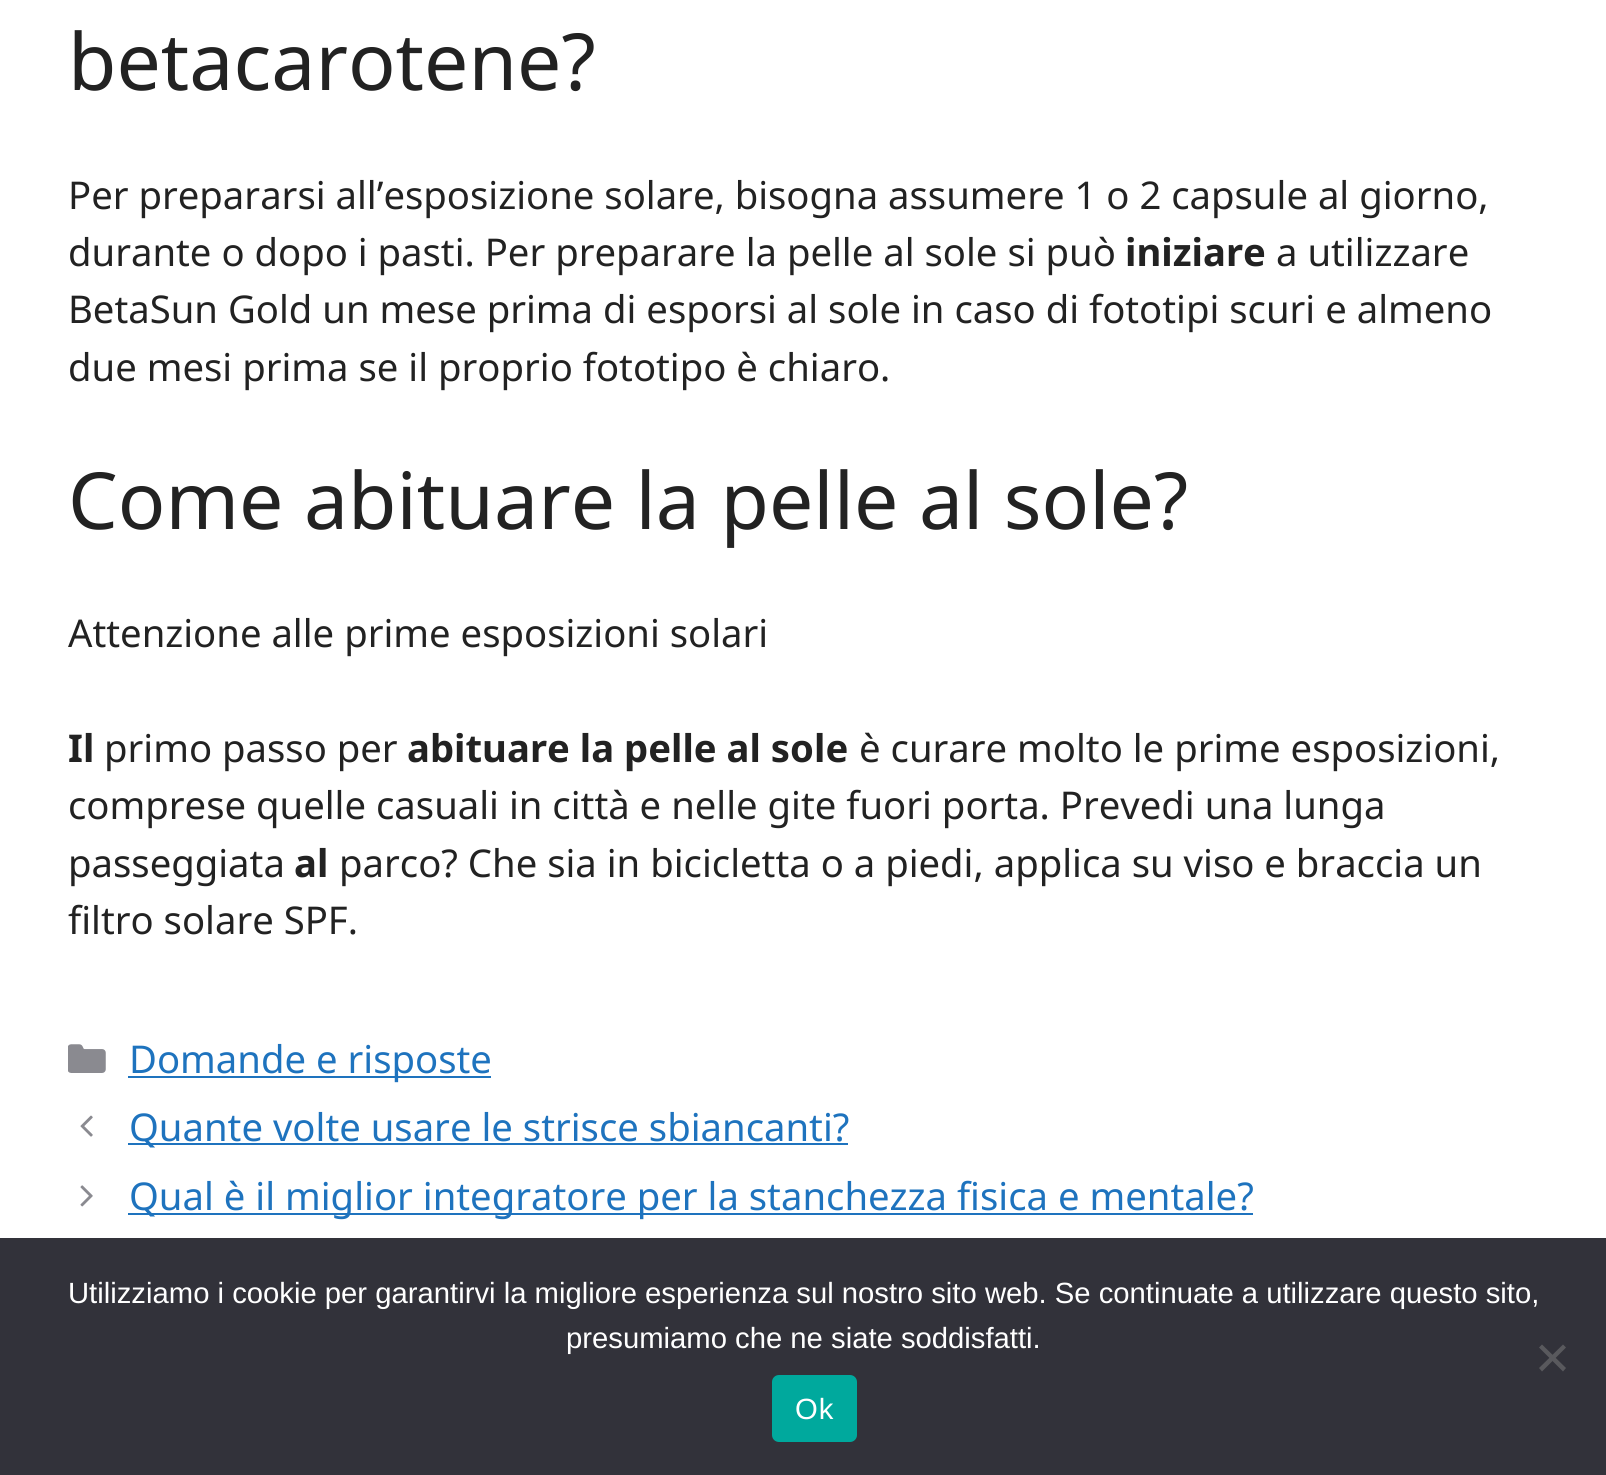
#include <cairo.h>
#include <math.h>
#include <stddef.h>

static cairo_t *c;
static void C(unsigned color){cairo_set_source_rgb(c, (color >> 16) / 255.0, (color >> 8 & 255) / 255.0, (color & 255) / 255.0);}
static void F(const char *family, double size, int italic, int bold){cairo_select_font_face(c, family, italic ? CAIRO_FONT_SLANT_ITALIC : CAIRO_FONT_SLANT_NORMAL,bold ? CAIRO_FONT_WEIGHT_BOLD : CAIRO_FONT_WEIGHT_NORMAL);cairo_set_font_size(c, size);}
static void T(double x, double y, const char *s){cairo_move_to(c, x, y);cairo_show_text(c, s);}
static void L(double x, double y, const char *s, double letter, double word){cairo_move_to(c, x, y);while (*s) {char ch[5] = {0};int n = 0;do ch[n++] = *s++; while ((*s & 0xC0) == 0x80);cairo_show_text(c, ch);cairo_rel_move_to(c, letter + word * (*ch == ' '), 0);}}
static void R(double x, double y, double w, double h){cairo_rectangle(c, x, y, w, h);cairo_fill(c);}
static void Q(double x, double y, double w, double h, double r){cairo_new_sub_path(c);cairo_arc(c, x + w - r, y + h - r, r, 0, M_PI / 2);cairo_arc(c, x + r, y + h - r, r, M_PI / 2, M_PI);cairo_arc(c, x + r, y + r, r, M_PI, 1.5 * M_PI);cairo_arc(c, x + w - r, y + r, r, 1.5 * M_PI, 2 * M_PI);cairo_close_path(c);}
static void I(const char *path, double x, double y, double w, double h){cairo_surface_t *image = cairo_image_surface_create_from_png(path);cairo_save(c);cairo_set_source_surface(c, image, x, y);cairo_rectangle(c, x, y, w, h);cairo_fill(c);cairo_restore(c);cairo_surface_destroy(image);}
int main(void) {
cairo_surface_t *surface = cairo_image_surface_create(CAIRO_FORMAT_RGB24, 1606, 1475);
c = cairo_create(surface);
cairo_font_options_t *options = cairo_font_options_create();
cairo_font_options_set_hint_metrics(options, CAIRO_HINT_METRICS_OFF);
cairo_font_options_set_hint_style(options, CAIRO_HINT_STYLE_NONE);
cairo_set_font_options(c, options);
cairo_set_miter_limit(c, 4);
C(0xffffff);
cairo_paint(c);
F("Noto Sans",78.75,0,0);
C(0x222222);
T(68,90,"betacarotene?");
F("Noto Sans",38.25,0,0);
T(68,209,"Per prepararsi all’esposizione solare, bisogna assumere 1 o 2 capsule al giorno,");
T(68,266,"durante o dopo i pasti. Per preparare la pelle al sole si può");
F("Noto Sans",38.25,0,1);
T(1125,266,"iniziare");
F("Noto Sans",38.25,0,0);
T(1276,266,"a utilizzare");
T(68,323,"BetaSun Gold un mese prima di esporsi al sole in caso di fototipi scuri e almeno");
T(68,381,"due mesi prima se il proprio fototipo è chiaro.");
F("Noto Sans",78.75,0,0);
T(68,529,"Come abituare la pelle al sole?");
F("Noto Sans",38.25,0,0);
T(68,647,"Attenzione alle prime esposizioni solari");
F("Noto Sans",38.25,0,1);
T(68,762,"Il");
F("Noto Sans",38.25,0,0);
T(104,762,"primo passo per");
F("Noto Sans",38.25,0,1);
T(407,762,"abituare la pelle al sole");
F("Noto Sans",38.25,0,0);
T(859,762,"è curare molto le prime esposizioni,");
T(68,819,"comprese quelle casuali in città e nelle gite fuori porta. Prevedi una lunga");
T(68,877,"passeggiata");
F("Noto Sans",38.25,0,1);
T(294,877,"al");
F("Noto Sans",38.25,0,0);
T(339,877,"parco? Che sia in bicicletta o a piedi, applica su viso e braccia un");
T(68,934,"filtro solare SPF.");
I("1.png",68,1044,38,29);
C(0x1e73be);
R(128,1076,363,2);
T(129,1073,"Domande e risposte");
I("2.png",80,1115,13,22);
R(128,1143,720,2);
T(129,1141,"Quante volte usare le strisce sbiancanti?");
I("3.png",80,1185,13,22);
R(128,1213,1125,2);
T(129,1210,"Qual è il miglior integratore per la stanchezza fisica e mentale?");
C(0x32323a);
R(0,1238,1606,237);
F("Liberation Sans",29.25,0,0);
C(0xffffff);
T(68,1303,"Utilizziamo i cookie per garantirvi la migliore esperienza sul nostro sito web. Se continuate a utilizzare questo sito,");
T(566,1348,"presumiamo che ne siate soddisfatti.");
C(0x59595d);
cairo_new_path(c);
cairo_move_to(c,1563,1344.5);
cairo_line_to(c,1566,1347.5);
cairo_line_to(c,1542,1371.5);
cairo_line_to(c,1539,1368);
cairo_close_path(c);
cairo_fill(c);
cairo_new_path(c);
cairo_move_to(c,1539,1347.5);
cairo_line_to(c,1542,1344.5);
cairo_line_to(c,1566,1368);
cairo_line_to(c,1563,1371.5);
cairo_close_path(c);
cairo_fill(c);
C(0x00a99d);
Q(772,1375,85,67,7);
cairo_fill(c);
C(0xffffff);
L(795,1419,"Ok",1,0);
cairo_surface_write_to_png(surface, "o.png");
cairo_font_options_destroy(options);
cairo_destroy(c);
cairo_surface_destroy(surface);
return 0;
}
